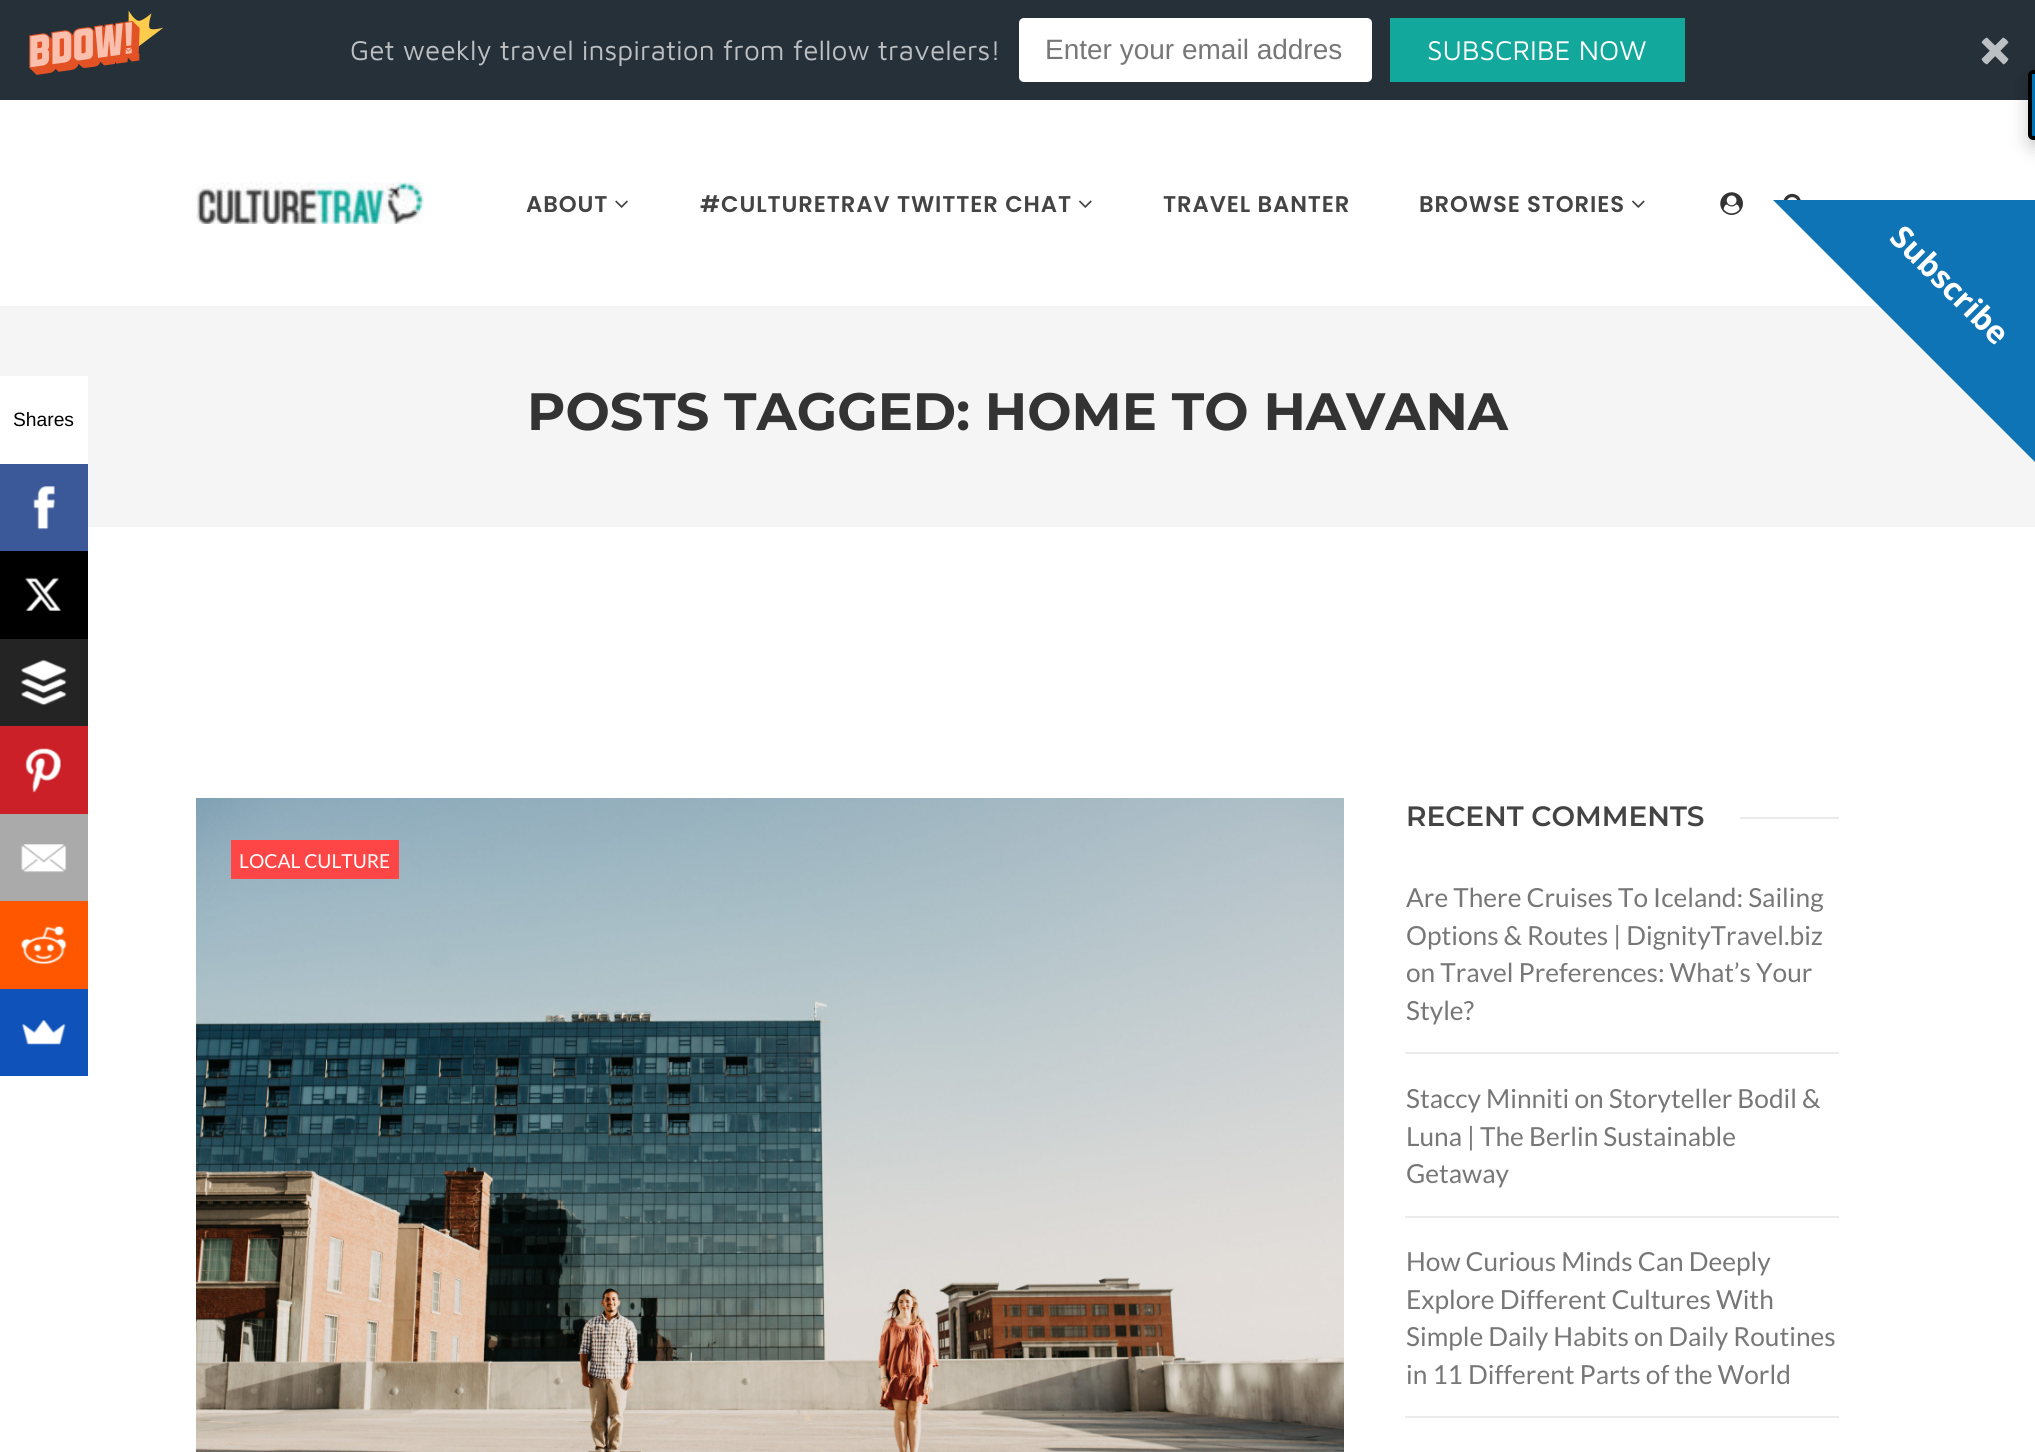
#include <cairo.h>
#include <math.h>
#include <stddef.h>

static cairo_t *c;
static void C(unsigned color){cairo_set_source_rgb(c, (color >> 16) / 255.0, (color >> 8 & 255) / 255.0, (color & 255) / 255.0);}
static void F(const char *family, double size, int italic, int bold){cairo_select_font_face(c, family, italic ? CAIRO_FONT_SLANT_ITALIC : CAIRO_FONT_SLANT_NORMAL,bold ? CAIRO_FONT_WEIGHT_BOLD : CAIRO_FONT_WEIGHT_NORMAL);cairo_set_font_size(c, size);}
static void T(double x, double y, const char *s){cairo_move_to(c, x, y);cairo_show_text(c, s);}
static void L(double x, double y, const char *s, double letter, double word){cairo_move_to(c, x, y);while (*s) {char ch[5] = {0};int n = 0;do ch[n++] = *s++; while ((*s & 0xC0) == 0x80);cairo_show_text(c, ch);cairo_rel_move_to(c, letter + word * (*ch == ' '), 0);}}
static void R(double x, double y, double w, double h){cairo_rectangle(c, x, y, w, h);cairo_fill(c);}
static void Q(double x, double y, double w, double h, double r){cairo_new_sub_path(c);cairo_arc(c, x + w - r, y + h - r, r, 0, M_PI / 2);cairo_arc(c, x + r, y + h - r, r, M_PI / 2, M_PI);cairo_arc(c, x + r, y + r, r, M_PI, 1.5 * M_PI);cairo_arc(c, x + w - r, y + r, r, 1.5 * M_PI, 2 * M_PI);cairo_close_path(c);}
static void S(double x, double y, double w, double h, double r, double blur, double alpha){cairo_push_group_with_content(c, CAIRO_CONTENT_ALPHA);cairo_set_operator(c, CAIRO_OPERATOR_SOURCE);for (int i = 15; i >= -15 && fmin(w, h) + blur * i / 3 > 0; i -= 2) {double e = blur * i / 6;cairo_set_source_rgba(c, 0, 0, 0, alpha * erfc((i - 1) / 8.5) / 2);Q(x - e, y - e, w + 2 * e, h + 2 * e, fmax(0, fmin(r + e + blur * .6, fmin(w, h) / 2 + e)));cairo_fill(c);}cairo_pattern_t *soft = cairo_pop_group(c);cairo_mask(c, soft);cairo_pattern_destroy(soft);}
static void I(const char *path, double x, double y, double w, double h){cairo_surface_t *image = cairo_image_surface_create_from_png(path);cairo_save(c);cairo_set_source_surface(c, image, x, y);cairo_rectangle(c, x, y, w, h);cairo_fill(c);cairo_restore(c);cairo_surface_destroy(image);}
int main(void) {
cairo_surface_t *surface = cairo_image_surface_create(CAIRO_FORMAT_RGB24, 2035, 1452);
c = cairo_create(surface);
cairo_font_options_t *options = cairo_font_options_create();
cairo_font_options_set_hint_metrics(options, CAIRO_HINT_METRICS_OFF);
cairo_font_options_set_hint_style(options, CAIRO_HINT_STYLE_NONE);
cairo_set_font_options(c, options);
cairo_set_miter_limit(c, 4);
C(0xffffff);
cairo_paint(c);
C(0x263039);
R(0,0,2035,100);
I("1.png",29,10,135,65);
F("Maven Pro",28,0,0);
C(0xbdc0c3);
T(350,60,"Get weekly travel inspiration from fellow travelers!");
C(0xffffff);
Q(1019,18,353,64,5);
cairo_fill(c);
F("Liberation Sans",28,0,0);
C(0x777777);
T(1045,59,"Enter your email addres");
C(0x13a89c);
R(1390,18,295,64);
F("Maven Pro",28,0,0);
C(0xffffff);
T(1427,60,"SUBSCRIBE NOW");
C(0xbdc0c3);
cairo_new_path(c);
cairo_move_to(c,2003,37.5);
cairo_curve_to(c,2005.5,38.5,2007.5,40.5,2008.5,42.5);
cairo_line_to(c,1987,64.5);
cairo_curve_to(c,1984.5,63.5,1982.5,61.5,1981.5,59);
cairo_close_path(c);
cairo_fill(c);
cairo_new_path(c);
cairo_move_to(c,2008.5,59);
cairo_curve_to(c,2007.5,61.5,2005.5,63.5,2003.5,64.5);
cairo_line_to(c,1981.5,42.5);
cairo_curve_to(c,1982.5,40.5,1984.5,38.5,1987,37.5);
cairo_close_path(c);
cairo_fill(c);
C(0x000000);
S(2028,77,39,70,5,9,.2);
C(0x0073b7);
cairo_new_path(c);
cairo_move_to(c,2033,72);
cairo_line_to(c,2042,72);
cairo_line_to(c,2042,138);
cairo_line_to(c,2033,138);
cairo_curve_to(c,2031.5,138,2030,136.5,2030,135);
cairo_line_to(c,2030,75);
cairo_curve_to(c,2030,73.5,2031.5,72,2033,72);
cairo_close_path(c);
cairo_fill_preserve(c);
C(0x000000);
cairo_set_line_width(c,4);
cairo_stroke(c);
C(0xf3f3f3);
R(0,306,1881,2);
I("2.png",196,182,228,42);
F("Poppins SemiBold",22.75,0,0);
C(0x444444);
L(526,212,"ABOUT",.9,0);
I("3.png",615,200,13,8);
L(700,212,"#CULTURETRAV TWITTER CHAT",.9,0);
I("4.png",1079,200,13,8);
L(1163,212,"TRAVEL BANTER",.9,0);
L(1419,212,"BROWSE STORIES",.9,0);
I("4.png",1632,200,13,8);
I("5.png",1720,192,23,23);
I("6.png",1783,193,18,7);
C(0xf5f5f5);
R(0,308,2035,219);
F("Montserrat",52.5,0,1);
C(0x333333);
T(527,430,"POSTS TAGGED: HOME TO HAVANA");
I("7.png",196,798,1148,654);
C(0xff4646);
R(231,840,168,39);
F("Lato",19.25,0,0);
C(0xffffff);
T(239,868,"LOCAL CULTURE");
F("Montserrat SemiBold",28,0,0);
C(0x444444);
T(1406,826,"RECENT COMMENTS");
C(0xebebeb);
R(1740,817,99,2);
R(1405,1052,434,2);
F("Lato",26.25,0,0);
C(0x777777);
T(1406,907,"Are There Cruises To Iceland: Sailing");
T(1406,945,"Options & Routes | DignityTravel.biz");
T(1406,982,"on Travel Preferences: What’s Your");
T(1406,1020,"Style?");
C(0xebebeb);
R(1405,1216,434,2);
C(0x777777);
T(1406,1108,"Staccy Minniti on Storyteller Bodil &");
T(1406,1146,"Luna | The Berlin Sustainable");
T(1406,1183,"Getaway");
C(0xebebeb);
R(1405,1416,434,2);
C(0x777777);
T(1406,1271,"How Curious Minds Can Deeply");
T(1406,1309,"Explore Different Cultures With");
T(1406,1346,"Simple Daily Habits on Daily Routines");
T(1406,1384,"in 11 Different Parts of the World");
C(0x0f74b5);
cairo_new_path(c);
cairo_move_to(c,1773,200);
cairo_line_to(c,2035,200);
cairo_line_to(c,2035,462);
cairo_close_path(c);
cairo_fill(c);
F("Open Sans",31.5,0,1);
C(0xffffff);
cairo_save(c);
cairo_translate(c,1888,239);
cairo_rotate(c,45 * M_PI / 180);
T(0,0,"Subscribe");
cairo_restore(c);
R(0,376,88,88);
F("Liberation Sans",19.25,0,0);
C(0x000000);
T(13,426,"Shares");
C(0x3b5998);
R(0,464,88,87);
I("8.png",33,486,22,44);
C(0x000000);
R(0,551,88,88);
I("9.png",25,577,36,34);
C(0x242424);
R(0,639,88,87);
I("10.png",21,660,46,46);
C(0xcb2027);
R(0,726,88,88);
I("11.png",25,748,36,45);
C(0xaaaaaa);
R(0,814,88,87);
I("12.png",21,844,46,29);
C(0xff5700);
R(0,901,88,88);
I("13.png",21,926,46,38);
C(0x0f52ba);
R(0,989,88,87);
I("14.png",22,1020,44,25);
cairo_surface_write_to_png(surface, "o.png");
cairo_font_options_destroy(options);
cairo_destroy(c);
cairo_surface_destroy(surface);
return 0;
}
